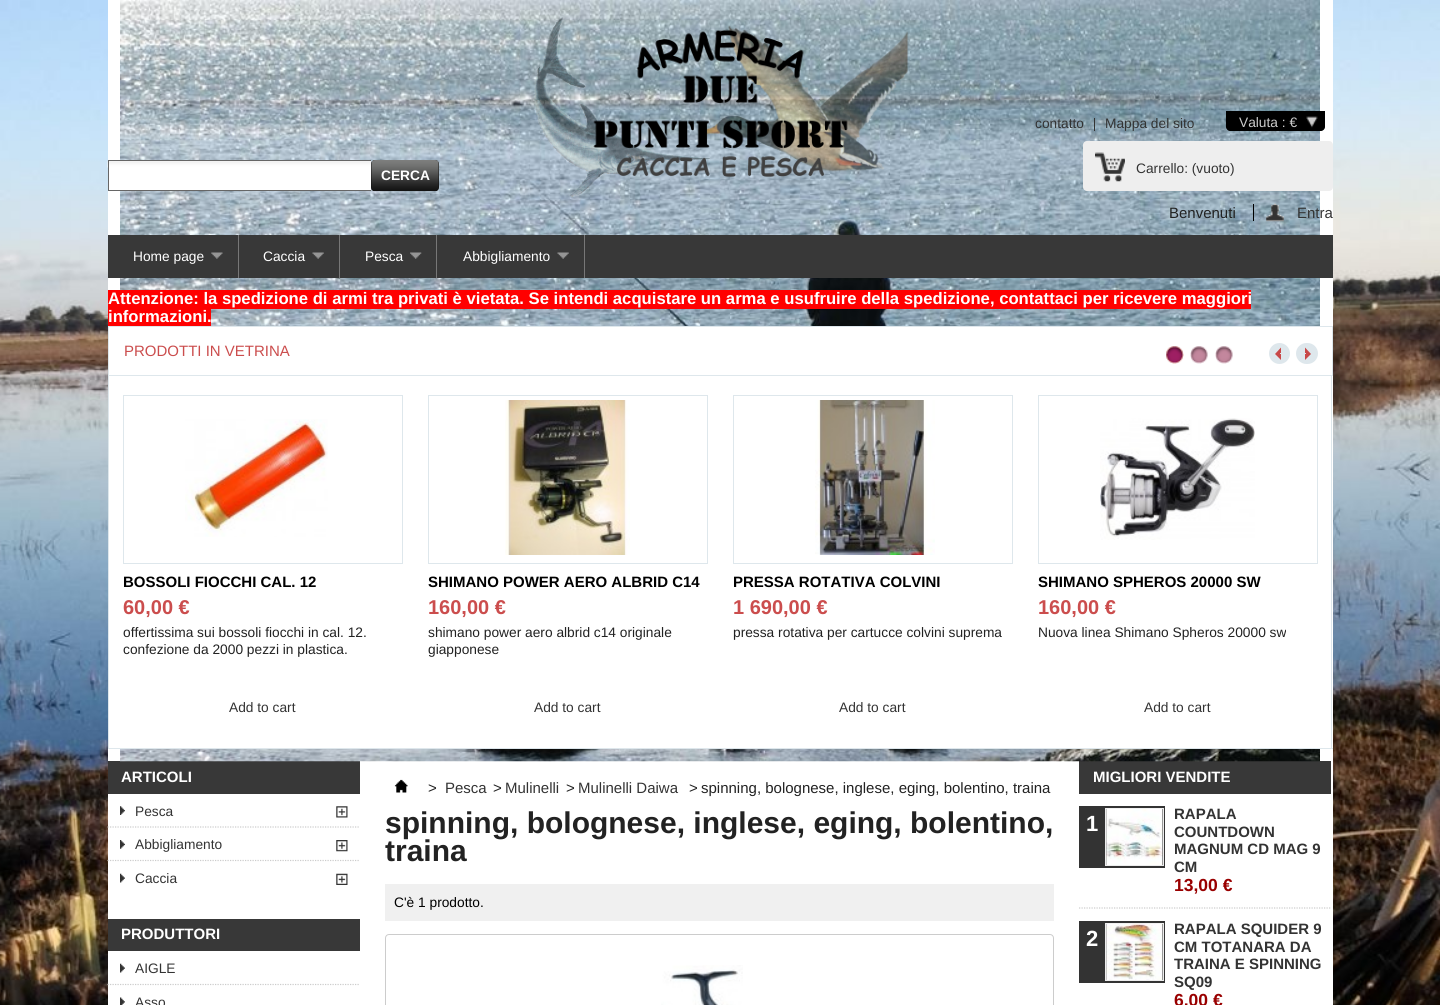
#include <cairo.h>
#include <math.h>
#include <stddef.h>

static cairo_t *c;
static void C(unsigned color){cairo_set_source_rgb(c, (color >> 16) / 255.0, (color >> 8 & 255) / 255.0, (color & 255) / 255.0);}
static void F(const char *family, double size, int italic, int bold){cairo_select_font_face(c, family, italic ? CAIRO_FONT_SLANT_ITALIC : CAIRO_FONT_SLANT_NORMAL,bold ? CAIRO_FONT_WEIGHT_BOLD : CAIRO_FONT_WEIGHT_NORMAL);cairo_set_font_size(c, size);}
static void T(double x, double y, const char *s){cairo_move_to(c, x, y);cairo_show_text(c, s);}
static void R(double x, double y, double w, double h){cairo_rectangle(c, x, y, w, h);cairo_fill(c);}
static void Q(double x, double y, double w, double h, double r){cairo_new_sub_path(c);cairo_arc(c, x + w - r, y + h - r, r, 0, M_PI / 2);cairo_arc(c, x + r, y + h - r, r, M_PI / 2, M_PI);cairo_arc(c, x + r, y + r, r, M_PI, 1.5 * M_PI);cairo_arc(c, x + w - r, y + r, r, 1.5 * M_PI, 2 * M_PI);cairo_close_path(c);}
static void I(const char *path, double x, double y, double w, double h){cairo_surface_t *image = cairo_image_surface_create_from_png(path);cairo_save(c);cairo_set_source_surface(c, image, x, y);cairo_rectangle(c, x, y, w, h);cairo_fill(c);cairo_restore(c);cairo_surface_destroy(image);}
int main(void) {
cairo_surface_t *surface = cairo_image_surface_create(CAIRO_FORMAT_RGB24, 1440, 1005);
c = cairo_create(surface);
cairo_font_options_t *options = cairo_font_options_create();
cairo_font_options_set_hint_metrics(options, CAIRO_HINT_METRICS_OFF);
cairo_font_options_set_hint_style(options, CAIRO_HINT_STYLE_NONE);
cairo_set_font_options(c, options);
cairo_set_miter_limit(c, 4);
C(0xffffff);
cairo_paint(c);
I("1.png",0,0,1440,1005);
C(0xffffff);
R(108,0,1225,1005);
C(0x383838);
R(108,761,252,33);
R(1079,761,252,33);
I("2.png",120,0,1200,762);
I("3.png",533,17,375,180);
F("Liberation Sans",13.75,0,0);
C(0x333333);
T(1035,128,"contatto");
R(1094,118,1,13);
T(1105,128,"Mappa del sito");
C(0x000000);
cairo_new_path(c);
cairo_move_to(c,1226,111);
cairo_line_to(c,1325,111);
cairo_line_to(c,1325,127);
cairo_curve_to(c,1325,129,1323,131,1321,131);
cairo_line_to(c,1230,131);
cairo_curve_to(c,1228,131,1226,129,1226,127);
cairo_close_path(c);
cairo_fill(c);
I("4.png",1306,116,12,12);
C(0xcccccc);
T(1239,127,"Valuta : €");
C(0xffffff);
R(120,161,251,29);
I("5.png",107,161,265,7);
C(0x666666);
R(108,160,263,1);
R(108,190,263,1);
R(108,160,1,31);
C(0x101010);
Q(371,160,68,31,4);
cairo_fill(c);
I("6.png",371,160,68,32);
F("Liberation Sans",13.75,0,1);
C(0xffffff);
T(381,180,"CERCA");
C(0xeeeeee);
Q(1083,141,250,50,4);
cairo_fill(c);
I("7.png",1095,152,30,30);
F("Liberation Sans",13.75,0,0);
C(0x333333);
T(1136,173,"Carrello: (vuoto)");
F("Liberation Sans",15,0,0);
C(0x222222);
T(1169,218,"Benvenuti");
I("8.png",1266,203,18,19);
C(0x000000);
R(1253,204,1,17);
C(0x333333);
T(1297,218,"Entra");
C(0x383838);
R(108,235,1225,43);
C(0x777777);
R(238,235,1,43);
F("Liberation Sans",13.75,0,0);
C(0xffffff);
T(133,261,"Home page");
I("9.png",211,252,12,7);
C(0x777777);
R(339,235,1,43);
C(0xffffff);
T(263,261,"Caccia");
I("10.png",312,252,12,7);
C(0x777777);
R(436,235,1,43);
C(0xffffff);
T(365,261,"Pesca");
I("11.png",410,252,12,7);
C(0x777777);
R(584,235,1,43);
C(0xffffff);
T(463,261,"Abbigliamento");
I("10.png",557,252,12,7);
C(0xff0000);
R(108,290,1143,19);
F("Liberation Sans",16.67,0,1);
C(0xffffff);
T(108,304,"Attenzione: la spedizione di armi tra privati è vietata. Se intendi acquistare un arma e usufruire della spedizione, contattaci per ricevere maggiori");
C(0xff0000);
R(108,309,103,17);
C(0xffffff);
T(108,322,"informazioni.");
R(120,327,1200,48);
cairo_rectangle(c,108.5,326.5,1224,49);
C(0xdee7ec);
cairo_set_line_width(c,1);
cairo_stroke(c);
F("Liberation Sans",15,0,0);
C(0xcb4d4d);
T(124,356,"PRODOTTI IN VETRINA");
C(0xffffff);
R(120,376,1200,372);
C(0xdee7ec);
R(1331,376,1,373);
R(108,748,1225,1);
R(108,376,1,373);
I("12.png",1166,346,18,18);
I("13.png",1190,346,18,18);
I("13.png",1215,346,18,18);
cairo_arc(c,1279.5,353.5,10.5,0,2 * M_PI);
cairo_fill(c);
C(0xc84848);
cairo_new_path(c);
cairo_move_to(c,1281,347.5);
cairo_line_to(c,1281,360);
cairo_line_to(c,1275,354);
cairo_close_path(c);
cairo_fill(c);
C(0xdee7ec);
R(1280,353,1,1);
Q(1296,343,22,21,10.5);
cairo_fill(c);
C(0xc84848);
cairo_new_path(c);
cairo_move_to(c,1305,360);
cairo_line_to(c,1305,347.5);
cairo_line_to(c,1311,354);
cairo_close_path(c);
cairo_fill(c);
C(0xdee7ec);
R(1305,353,1,1);
cairo_rectangle(c,123.5,395.5,279,168);
cairo_stroke(c);
I("14.png",185,419,143,118);
F("Liberation Sans",15,0,1);
C(0x000000);
T(123,587,"BOSSOLI FIOCCHI CAL. 12");
F("Liberation Sans",20,0,1);
C(0xcb4d4d);
T(123,614,"60,00 €");
F("Liberation Sans",13.75,0,0);
C(0x222222);
T(123,637,"offertissima sui bossoli fiocchi in cal. 12.");
T(123,654,"confezione da 2000 pezzi in plastica.");
C(0x333333);
T(229,712,"Add to cart");
cairo_rectangle(c,428.5,395.5,279,168);
C(0xdee7ec);
cairo_stroke(c);
I("15.png",505,400,125,155);
F("Liberation Sans",15,0,1);
C(0x000000);
T(428,587,"SHIMANO POWER AERO ALBRID C14");
F("Liberation Sans",20,0,1);
C(0xcb4d4d);
T(428,614,"160,00 €");
F("Liberation Sans",13.75,0,0);
C(0x222222);
T(428,637,"shimano power aero albrid c14 originale");
T(428,654,"giapponese");
C(0x333333);
T(534,712,"Add to cart");
cairo_rectangle(c,733.5,395.5,279,168);
C(0xdee7ec);
cairo_stroke(c);
I("16.png",815,400,120,155);
F("Liberation Sans",15,0,1);
C(0x000000);
T(733,587,"PRESSA ROTATIVA COLVINI");
F("Liberation Sans",20,0,1);
C(0xcb4d4d);
T(733,614,"1 690,00 €");
F("Liberation Sans",13.75,0,0);
C(0x222222);
T(733,637,"pressa rotativa per cartucce colvini suprema");
C(0x333333);
T(839,712,"Add to cart");
cairo_rectangle(c,1038.5,395.5,279,168);
C(0xdee7ec);
cairo_stroke(c);
I("17.png",1100,418,155,122);
F("Liberation Sans",15,0,1);
C(0x000000);
T(1038,587,"SHIMANO SPHEROS 20000 SW");
F("Liberation Sans",20,0,1);
C(0xcb4d4d);
T(1038,614,"160,00 €");
F("Liberation Sans",13.75,0,0);
C(0x222222);
T(1038,637,"Nuova linea Shimano Spheros 20000 sw");
C(0x333333);
T(1144,712,"Add to cart");
F("Liberation Sans",15,0,1);
C(0xffffff);
T(121,782,"ARTICOLI");
cairo_new_path(c);
cairo_move_to(c,107.5,827);
cairo_line_to(c,360,827);
C(0xcccccc);
cairo_set_line_width(c,1.2);
cairo_set_dash(c,(double[]){1.25,1.25},2,0);
cairo_stroke(c);
I("18.png",120,806,5,9);
F("Liberation Sans",13.75,0,0);
C(0x333333);
T(135,816,"Pesca");
I("19.png",336,806,12,12);
cairo_new_path(c);
cairo_move_to(c,107.5,860.5);
cairo_line_to(c,360,860.5);
C(0xcccccc);
cairo_stroke(c);
I("20.png",120,840,5,9);
C(0x333333);
T(135,849,"Abbigliamento");
I("21.png",336,840,12,12);
I("22.png",120,873,5,10);
T(135,883,"Caccia");
I("23.png",336,873,12,12);
C(0x383838);
R(108,919,252,32);
F("Liberation Sans",15,0,1);
C(0xffffff);
T(121,939,"PRODUTTORI");
cairo_new_path(c);
cairo_move_to(c,107.5,984.5);
cairo_line_to(c,360,984.5);
C(0xcccccc);
cairo_stroke(c);
I("22.png",120,963,5,10);
F("Liberation Sans",13.75,0,0);
C(0x333333);
T(135,973,"AIGLE");
I("24.png",120,997,5,8);
T(135,1007,"Asso");
I("25.png",394,779,14,14);
F("Liberation Sans",15,0,0);
C(0x222222);
T(428,793,">");
C(0x333333);
T(445,793,"Pesca");
C(0x222222);
T(493,793,">");
C(0x333333);
T(505,793,"Mulinelli");
C(0x222222);
T(566,793,">");
C(0x333333);
T(578,793,"Mulinelli Daiwa");
C(0x222222);
T(689,793,">");
T(701,793,"spinning, bolognese, inglese, eging, bolentino, traina");
F("Liberation Sans",30,0,1);
T(385,833,"spinning, bolognese, inglese, eging, bolentino,");
T(385,861,"traina");
C(0xf0f0f0);
R(385,884,669,37);
F("Liberation Sans",13.75,0,0);
C(0x000000);
T(394,907,"C'è 1 prodotto.");
Q(385.5,934.5,668,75,3.5);
C(0xcccccc);
cairo_set_line_width(c,1);
cairo_set_dash(c,NULL,0,0);
cairo_stroke(c);
I("26.png",661,965,82,40);
F("Liberation Sans",15,0,1);
C(0xffffff);
T(1093,782,"MIGLIORI VENDITE");
cairo_new_path(c);
cairo_move_to(c,1079,908);
cairo_line_to(c,1331,908);
C(0xcccccc);
cairo_set_line_width(c,1.2);
cairo_set_dash(c,(double[]){1.25,1.25},2,0);
cairo_stroke(c);
C(0x333333);
R(1079,806,86,62);
cairo_rectangle(c,1105.5,808.5,58,57);
C(0xededed);
cairo_set_line_width(c,1);
cairo_set_dash(c,NULL,0,0);
cairo_stroke(c);
F("Liberation Sans",22,0,1);
C(0xffffff);
T(1086,831,"1");
I("27.png",1106,808,57,57);
F("Liberation Sans",15,0,1);
C(0x333333);
T(1174,819,"RAPALA");
T(1174,837,"COUNTDOWN");
T(1174,854,"MAGNUM CD MAG 9");
T(1174,872,"CM");
F("Liberation Sans",17.5,0,1);
C(0x990000);
T(1174,891,"13,00 €");
C(0x333333);
R(1079,921,86,62);
cairo_rectangle(c,1105.5,923.5,58,57);
C(0xededed);
cairo_stroke(c);
F("Liberation Sans",22,0,1);
C(0xffffff);
T(1086,946,"2");
I("28.png",1106,923,57,57);
F("Liberation Sans",15,0,1);
C(0x333333);
T(1174,934,"RAPALA SQUIDER 9");
T(1174,952,"CM TOTANARA DA");
T(1174,969,"TRAINA E SPINNING");
T(1174,987,"SQ09");
F("Liberation Sans",17.5,0,1);
C(0x990000);
T(1174,1006,"6,00 €");
cairo_surface_write_to_png(surface, "o.png");
cairo_font_options_destroy(options);
cairo_destroy(c);
cairo_surface_destroy(surface);
return 0;
}
